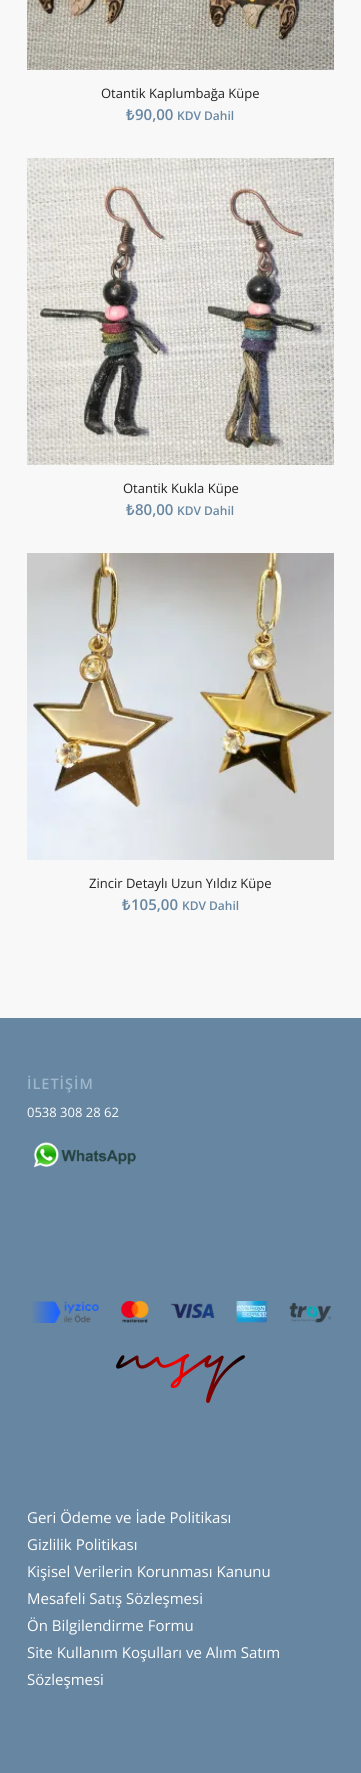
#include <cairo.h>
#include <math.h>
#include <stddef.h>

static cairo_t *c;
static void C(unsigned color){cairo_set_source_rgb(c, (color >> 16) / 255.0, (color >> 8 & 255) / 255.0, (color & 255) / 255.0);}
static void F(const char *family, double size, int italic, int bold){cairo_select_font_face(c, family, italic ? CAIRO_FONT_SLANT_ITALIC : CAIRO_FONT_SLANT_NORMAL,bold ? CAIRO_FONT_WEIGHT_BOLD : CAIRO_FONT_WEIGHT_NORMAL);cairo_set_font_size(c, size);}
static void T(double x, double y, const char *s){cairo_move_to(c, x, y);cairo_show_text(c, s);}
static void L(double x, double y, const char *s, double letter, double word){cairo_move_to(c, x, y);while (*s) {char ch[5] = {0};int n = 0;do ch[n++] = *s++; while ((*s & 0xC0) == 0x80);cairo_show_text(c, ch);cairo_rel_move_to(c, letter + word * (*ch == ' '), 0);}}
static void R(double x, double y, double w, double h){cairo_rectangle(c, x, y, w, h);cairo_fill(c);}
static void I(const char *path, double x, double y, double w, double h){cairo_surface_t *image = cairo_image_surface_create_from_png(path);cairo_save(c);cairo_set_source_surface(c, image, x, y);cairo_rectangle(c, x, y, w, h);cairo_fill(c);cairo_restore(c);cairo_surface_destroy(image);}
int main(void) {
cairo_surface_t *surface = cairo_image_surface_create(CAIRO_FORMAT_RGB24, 361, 1773);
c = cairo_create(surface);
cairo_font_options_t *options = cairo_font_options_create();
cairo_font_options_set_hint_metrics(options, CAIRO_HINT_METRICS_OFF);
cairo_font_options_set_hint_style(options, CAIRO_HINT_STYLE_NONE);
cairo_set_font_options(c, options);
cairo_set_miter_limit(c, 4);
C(0xf8f8f8);
cairo_paint(c);
I("1.png",27,0,307,70);
F("Open Sans",13,0,0);
C(0x222222);
T(101,98,"Otantik Kaplumbağa Küpe");
F("Noto Sans SemiBold",15,0,0);
C(0x6786a1);
T(126,120,"₺");
F("Open Sans SemiBold",15,0,0);
T(135,120,"90,00");
F("Open Sans SemiBold",12,0,0);
T(177,120,"KDV Dahil");
I("2.png",27,158,307,307);
F("Open Sans",13,0,0);
C(0x222222);
T(123,493,"Otantik Kukla Küpe");
F("Noto Sans SemiBold",15,0,0);
C(0x6786a1);
T(126,515,"₺");
F("Open Sans SemiBold",15,0,0);
T(135,515,"80,00");
F("Open Sans SemiBold",12,0,0);
T(177,515,"KDV Dahil");
I("3.png",27,553,307,307);
F("Open Sans",13,0,0);
C(0x222222);
T(89,888,"Zincir Detaylı Uzun Yıldız Küpe");
F("Noto Sans SemiBold",15,0,0);
C(0x6786a1);
T(122,910,"₺");
F("Open Sans SemiBold",15,0,0);
T(131,910,"105,00");
F("Open Sans SemiBold",12,0,0);
T(182,910,"KDV Dahil");
R(0,1018,361,755);
F("Open Sans SemiBold",14.5,0,0);
C(0x9db8cc);
L(27,1089,"İLETİŞİM",1,0);
F("Open Sans",13,0,0);
C(0xffffff);
T(27,1117,"0538 308 28 62");
I("4.png",34,1142,102,26);
I("5.png",32,1301,299,22);
I("6.png",116,1354,129,49);
F("Open Sans",15,0,0);
T(27,1523,"Geri Ödeme ve İade Politikası");
T(27,1550,"Gizlilik Politikası");
T(27,1577,"Kişisel Verilerin Korunması Kanunu");
T(27,1604,"Mesafeli Satış Sözleşmesi");
T(27,1631,"Ön Bilgilendirme Formu");
T(27,1658,"Site Kullanım Koşulları ve Alım Satım");
T(27,1685,"Sözleşmesi");
cairo_surface_write_to_png(surface, "o.png");
cairo_font_options_destroy(options);
cairo_destroy(c);
cairo_surface_destroy(surface);
return 0;
}
